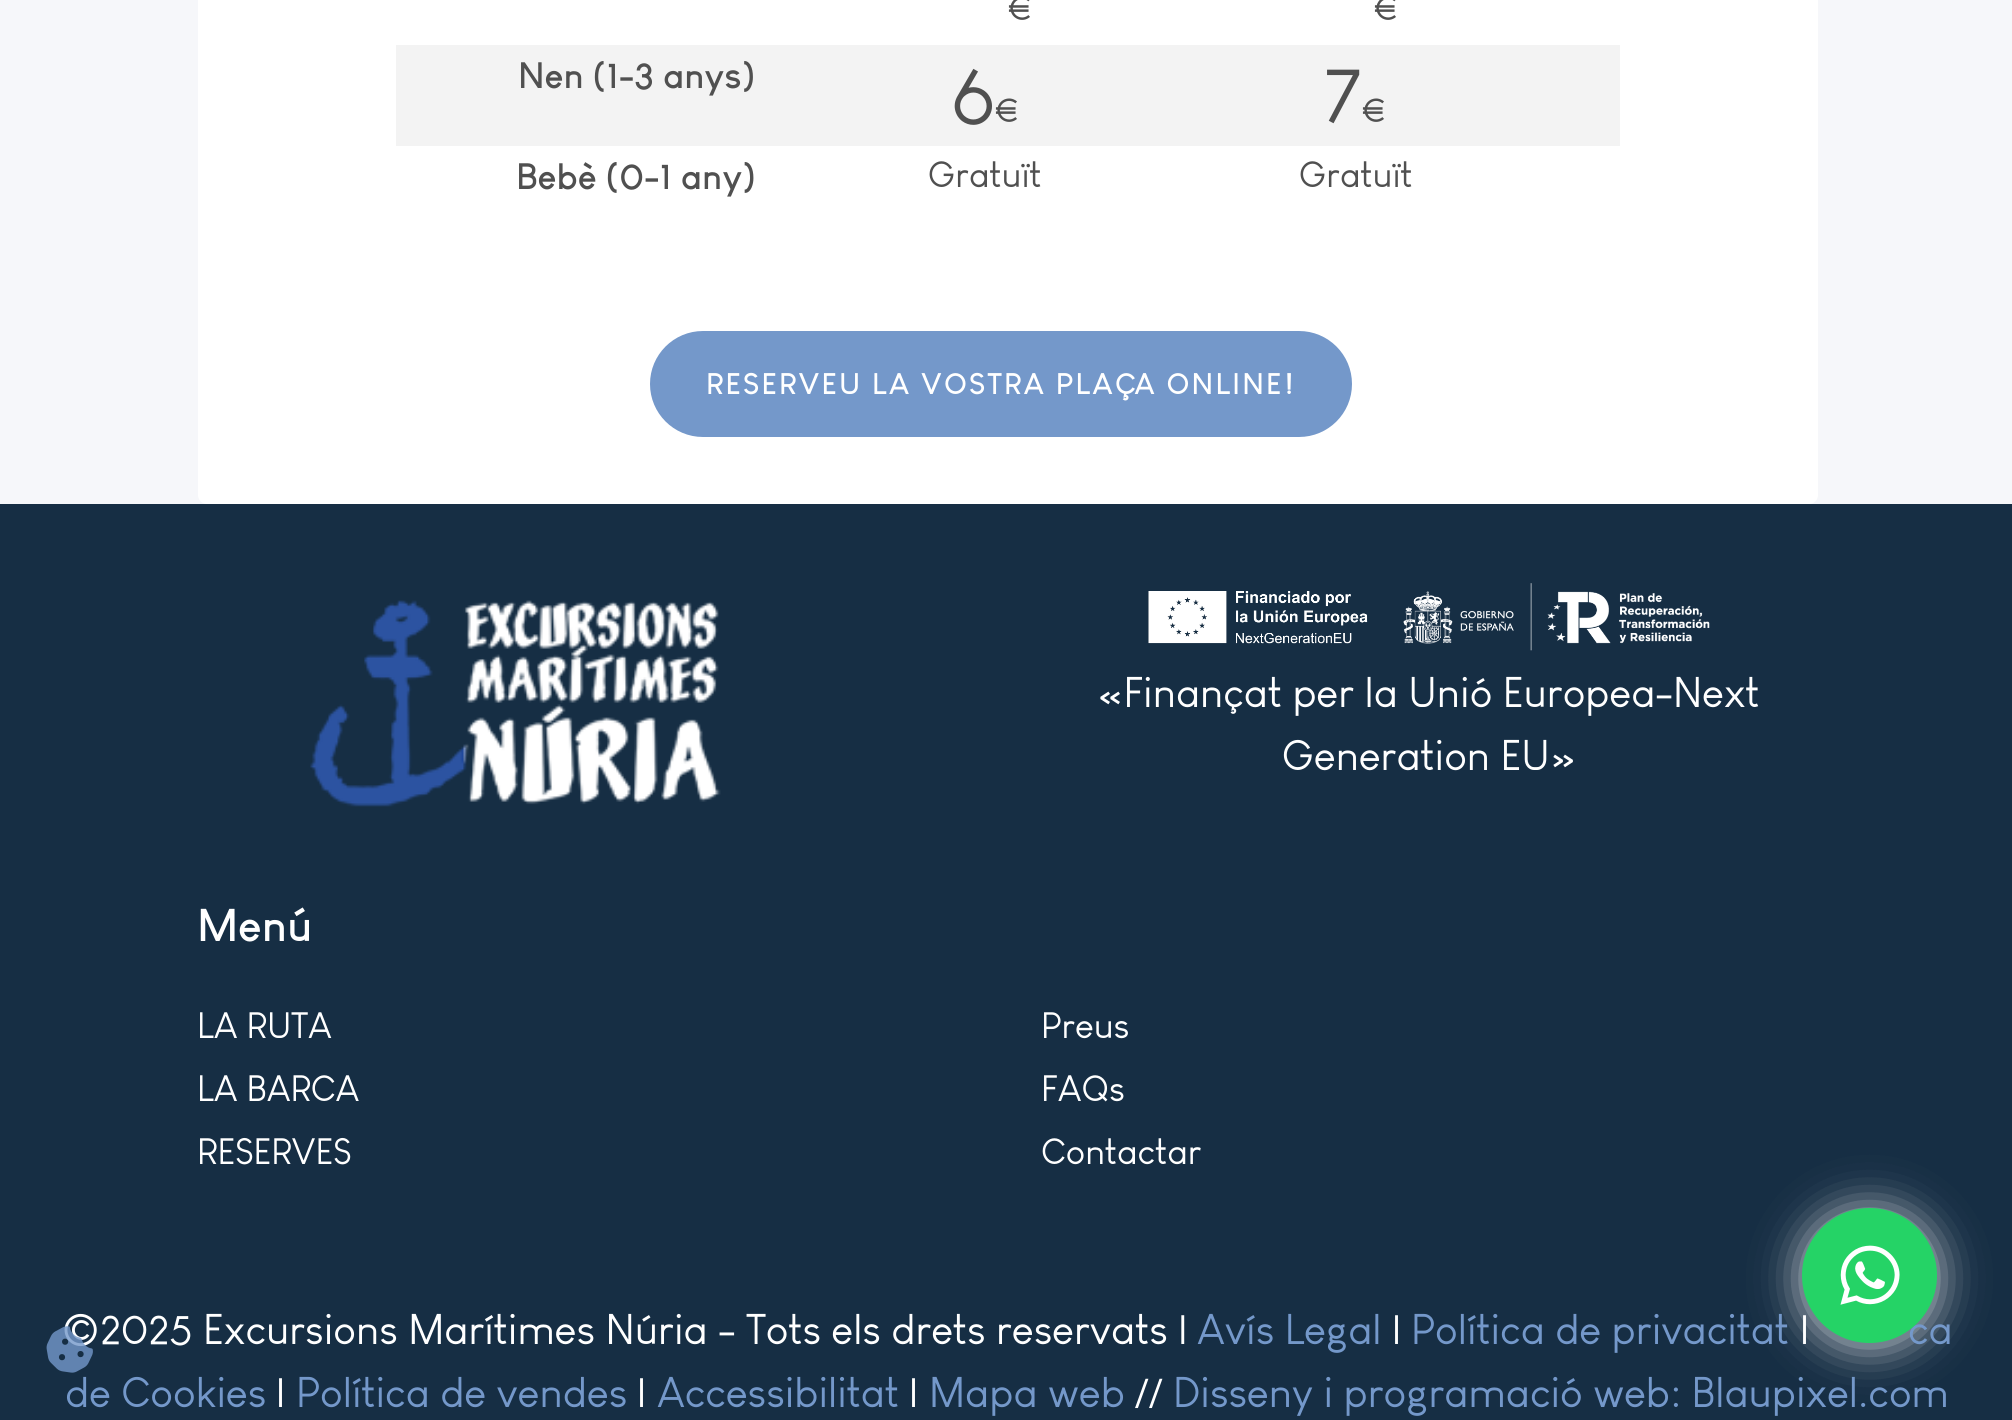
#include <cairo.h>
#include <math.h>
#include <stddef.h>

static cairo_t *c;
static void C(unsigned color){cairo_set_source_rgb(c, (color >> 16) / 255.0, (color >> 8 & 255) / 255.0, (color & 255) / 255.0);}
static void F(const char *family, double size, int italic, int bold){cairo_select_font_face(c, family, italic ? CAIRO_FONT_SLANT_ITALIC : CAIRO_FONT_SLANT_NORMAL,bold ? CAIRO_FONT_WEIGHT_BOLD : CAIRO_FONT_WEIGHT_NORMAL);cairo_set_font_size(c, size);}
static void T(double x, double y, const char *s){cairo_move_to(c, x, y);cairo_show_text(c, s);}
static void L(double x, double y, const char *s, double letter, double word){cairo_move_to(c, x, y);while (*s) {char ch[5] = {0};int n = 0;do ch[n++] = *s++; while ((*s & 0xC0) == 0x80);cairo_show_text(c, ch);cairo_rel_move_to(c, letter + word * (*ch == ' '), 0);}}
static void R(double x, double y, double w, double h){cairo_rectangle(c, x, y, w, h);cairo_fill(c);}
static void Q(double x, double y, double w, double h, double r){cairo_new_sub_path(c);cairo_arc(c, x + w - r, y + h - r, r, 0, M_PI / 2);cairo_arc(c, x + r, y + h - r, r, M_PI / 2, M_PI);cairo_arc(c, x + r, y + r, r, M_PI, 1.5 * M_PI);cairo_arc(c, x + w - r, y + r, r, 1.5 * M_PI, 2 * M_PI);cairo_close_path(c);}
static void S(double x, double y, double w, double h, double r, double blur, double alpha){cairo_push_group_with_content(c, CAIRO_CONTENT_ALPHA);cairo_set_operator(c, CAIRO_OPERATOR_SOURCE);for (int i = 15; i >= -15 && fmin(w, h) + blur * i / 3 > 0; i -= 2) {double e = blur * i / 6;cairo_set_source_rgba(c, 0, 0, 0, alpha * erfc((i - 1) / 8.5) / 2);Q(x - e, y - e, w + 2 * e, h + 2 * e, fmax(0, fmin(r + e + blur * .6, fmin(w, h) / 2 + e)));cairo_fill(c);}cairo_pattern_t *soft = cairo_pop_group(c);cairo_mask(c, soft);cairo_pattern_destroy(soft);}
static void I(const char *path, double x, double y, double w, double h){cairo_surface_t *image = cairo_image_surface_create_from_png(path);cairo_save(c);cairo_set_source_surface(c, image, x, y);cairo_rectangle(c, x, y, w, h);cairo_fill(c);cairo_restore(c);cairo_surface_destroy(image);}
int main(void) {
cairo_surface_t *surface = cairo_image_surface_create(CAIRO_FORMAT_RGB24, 2012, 1420);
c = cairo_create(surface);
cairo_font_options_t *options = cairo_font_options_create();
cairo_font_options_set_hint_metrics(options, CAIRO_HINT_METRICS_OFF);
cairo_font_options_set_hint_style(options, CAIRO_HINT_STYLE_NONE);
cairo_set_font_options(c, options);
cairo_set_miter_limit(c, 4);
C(0xf6f7fa);
cairo_paint(c);
C(0xffffff);
Q(198,-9,1620,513,9);
cairo_fill(c);
F("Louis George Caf",36,0,0);
C(0x505050);
T(1008,20,"€");
T(1374,20,"€");
C(0xf3f3f3);
R(396,45,1224,101);
F("Louis George Caf",36,0,1);
C(0x505050);
T(518,88,"Nen (1-3 anys)");
F("Louis George Caf",79,0,0);
T(951,122,"6");
F("Louis George Caf",36,0,0);
T(995,122,"€");
F("Louis George Caf",79,0,0);
T(1325,122,"7");
F("Louis George Caf",36,0,0);
T(1362,122,"€");
F("Louis George Caf",36,0,1);
T(516,189,"Bebè (0-1 any)");
F("Louis George Caf",36,0,0);
T(928,187,"Gratuït");
T(1299,187,"Gratuït");
C(0x7498ca);
Q(650,331,702,106,53);
cairo_fill(c);
F("Louis George Caf",29.25,0,1);
C(0xffffff);
L(706,394,"RESERVEU LA VOSTRA PLAÇA ONLINE!",2.25,0);
C(0x162e44);
R(0,504,2012,916);
I("1.png",310,600,411,207);
I("2.png",1148,583,562,68);
F("Louis George Caf",42.1,0,0);
C(0xffffff);
T(1098,707,"«Finançat per la Unió Europea-Next");
T(1282,770,"Generation EU»");
F("Louis George Caf",45,0,1);
T(197,941,"Menú");
F("Louis George Caf",36,0,0);
T(197,1038,"LA RUTA");
T(197,1101,"LA BARCA");
T(197,1164,"RESERVES");
T(1041,1038,"Preus");
T(1041,1101,"FAQs");
T(1041,1164,"Contactar");
C(0xffffff);
S(1802,1211,135,135,67.5,22.5,.8);
F("Louis George Caf",42.1,0,0);
C(0xffffff);
T(1800,1344,"|");
C(0x7498ca);
T(1908,1344,"ca");
C(0x25d366);
cairo_new_path(c);
cairo_arc(c,1869.5,1275.5,67.5,0,2 * M_PI);
cairo_fill(c);
I("3.png",1840,1245,60,60);
C(0xffffff);
T(61,1344,"©2025 Excursions Marítimes Núria - Tots els drets reservats |");
C(0x7498ca);
T(1197,1344,"Avís Legal");
C(0xffffff);
T(1392,1344,"|");
C(0x7498ca);
T(1411,1344,"Política de privacitat");
T(65,1407,"de Cookies");
C(0xffffff);
T(276,1407,"|");
C(0x7498ca);
T(296,1407,"Política de vendes");
C(0xffffff);
T(637,1407,"|");
C(0x7498ca);
T(657,1407,"Accessibilitat");
C(0xffffff);
T(909,1407,"|");
C(0x7498ca);
T(929,1407,"Mapa web");
C(0xffffff);
T(1135,1407,"//");
C(0x7498ca);
T(1173,1407,"Disseny i programació web: Blaupixel.com");
I("4.png",46,1326,47,47);
cairo_surface_write_to_png(surface, "o.png");
cairo_font_options_destroy(options);
cairo_destroy(c);
cairo_surface_destroy(surface);
return 0;
}
